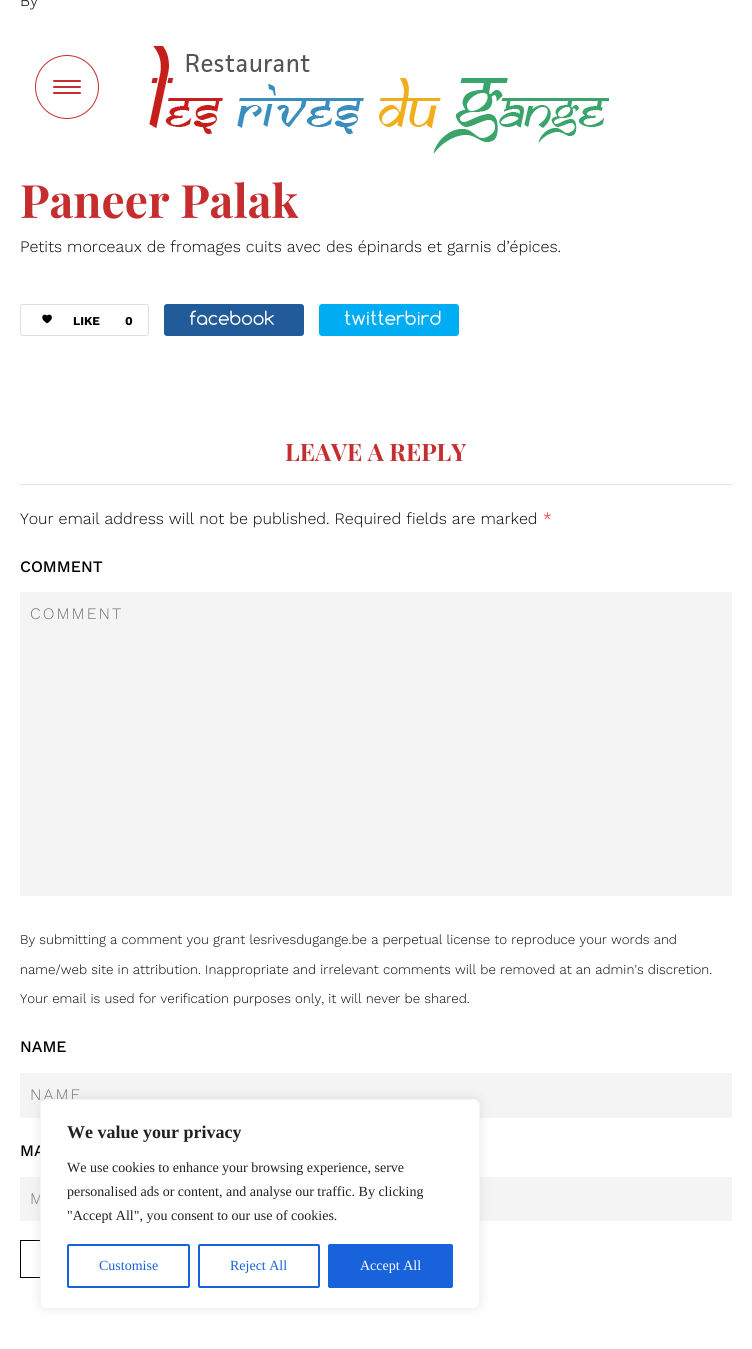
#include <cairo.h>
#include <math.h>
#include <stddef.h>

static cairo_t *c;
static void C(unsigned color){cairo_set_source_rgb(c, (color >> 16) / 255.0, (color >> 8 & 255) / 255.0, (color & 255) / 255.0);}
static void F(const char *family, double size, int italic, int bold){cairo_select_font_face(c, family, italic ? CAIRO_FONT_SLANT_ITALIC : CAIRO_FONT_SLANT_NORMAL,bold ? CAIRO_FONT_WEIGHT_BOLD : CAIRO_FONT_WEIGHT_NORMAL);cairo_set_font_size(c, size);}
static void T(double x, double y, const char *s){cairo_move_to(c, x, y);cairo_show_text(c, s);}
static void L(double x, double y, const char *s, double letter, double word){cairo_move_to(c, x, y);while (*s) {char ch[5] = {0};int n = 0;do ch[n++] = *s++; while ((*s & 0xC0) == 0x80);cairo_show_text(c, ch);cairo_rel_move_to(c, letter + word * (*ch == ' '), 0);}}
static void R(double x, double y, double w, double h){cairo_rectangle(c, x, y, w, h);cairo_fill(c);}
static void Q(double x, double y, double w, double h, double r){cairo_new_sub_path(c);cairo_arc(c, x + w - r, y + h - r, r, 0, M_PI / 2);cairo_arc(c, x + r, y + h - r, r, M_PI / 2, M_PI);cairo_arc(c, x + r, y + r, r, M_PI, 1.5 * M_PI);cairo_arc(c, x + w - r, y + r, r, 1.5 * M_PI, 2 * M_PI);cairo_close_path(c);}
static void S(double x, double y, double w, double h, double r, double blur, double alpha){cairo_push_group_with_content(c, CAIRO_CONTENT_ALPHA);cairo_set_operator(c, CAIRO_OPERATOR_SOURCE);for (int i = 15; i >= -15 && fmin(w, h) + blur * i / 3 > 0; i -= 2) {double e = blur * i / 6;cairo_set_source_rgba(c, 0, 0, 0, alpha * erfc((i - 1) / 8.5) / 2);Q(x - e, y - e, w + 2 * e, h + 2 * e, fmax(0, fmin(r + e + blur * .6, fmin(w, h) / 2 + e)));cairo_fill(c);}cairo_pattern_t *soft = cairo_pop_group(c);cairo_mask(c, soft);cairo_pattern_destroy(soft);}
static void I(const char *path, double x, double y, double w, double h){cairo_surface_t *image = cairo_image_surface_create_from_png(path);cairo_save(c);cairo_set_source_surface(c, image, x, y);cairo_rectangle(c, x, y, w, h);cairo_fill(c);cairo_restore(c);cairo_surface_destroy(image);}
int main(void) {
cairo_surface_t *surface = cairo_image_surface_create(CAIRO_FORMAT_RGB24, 752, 1349);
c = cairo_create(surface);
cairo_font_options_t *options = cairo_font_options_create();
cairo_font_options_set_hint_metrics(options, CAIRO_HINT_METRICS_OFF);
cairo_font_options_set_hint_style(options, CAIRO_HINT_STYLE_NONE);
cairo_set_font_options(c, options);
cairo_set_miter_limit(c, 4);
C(0xffffff);
cairo_paint(c);
F("Work Sans Light",16,0,0);
C(0x000000);
T(20,6,"By");
F("Playfair Display",46,0,1);
C(0xc62d2f);
T(20,218,"Paneer Palak");
F("Work Sans Light",16,0,0);
C(0x000000);
T(20,252,"Petits morceaux de fromages cuits avec des épinards et garnis d’épices.");
Q(20.5,304.5,128,31,2.5);
C(0xdedede);
cairo_set_line_width(c,1);
cairo_stroke(c);
I("1.png",42,314,10,10);
F("Work Sans",12,0,1);
C(0x000000);
T(73,325,"LIKE");
T(125,325,"0");
C(0x225b99);
Q(164,304,140,32,3);
cairo_fill(c);
I("2.png",189,310,85,15);
C(0x00adf2);
Q(319,304,140,32,3);
cairo_fill(c);
I("3.png",344,310,97,15);
C(0xe9e1e1);
R(20,484,712,1);
F("Playfair Display",24,0,1);
C(0xc62d2f);
T(285,461,"LEAVE A REPLY");
F("Work Sans Light",16,0,0);
C(0x000000);
T(20,524,"Your email address will not be published. Required fields are marked");
C(0xff0000);
T(543,524,"*");
F("Work Sans Medium",16,0,0);
C(0x000000);
T(20,572,"COMMENT");
C(0xf4f4f4);
R(20,592,712,304);
F("Work Sans Light",16,0,0);
C(0x757575);
L(30,619,"COMMENT",2,0);
F("Work Sans Light",13.33,0,0);
C(0x000000);
T(20,944,"By submitting a comment you grant lesrivesdugange.be a perpetual license to reproduce your words and");
T(20,974,"name/web site in attribution. Inappropriate and irrelevant comments will be removed at an admin's discretion.");
T(20,1003,"Your email is used for verification purposes only, it will never be shared.");
F("Work Sans Medium",16,0,0);
T(20,1052,"NAME");
C(0xf4f4f4);
R(20,1073,712,45);
F("Work Sans Light",16,0,0);
C(0x757575);
L(30,1100,"NAME",2,0);
F("Work Sans Medium",16,0,0);
C(0x000000);
T(20,1156,"MA");
C(0xf4f4f4);
R(20,1177,712,44);
F("Work Sans Light",16,0,0);
C(0x757575);
L(30,1204,"M",2,0);
cairo_rectangle(c,20.5,1240.5,164,37);
C(0x000000);
cairo_stroke(c);
cairo_arc(c,67,87,31.5,0,2 * M_PI);
C(0xc62d2f);
cairo_stroke(c);
Q(53,80,28,2,1);
cairo_fill(c);
Q(53,86,28,2,1);
cairo_fill(c);
Q(53,92,28,2,1);
cairo_fill(c);
I("4.png",149,46,460,108);
C(0xacabab);
S(40,1098,440,210,6,5,.3);
C(0xffffff);
Q(40.5,1099.5,439,209,5.5);
cairo_fill_preserve(c);
C(0xf4f4f4);
cairo_stroke(c);
F("Liberation Serif",18,0,1);
C(0x212121);
T(67,1138,"We value your privacy");
F("Liberation Serif",14,0,0);
T(67,1172,"We use cookies to enhance your browsing experience, serve");
T(67,1196,"personalised ads or content, and analyse our traffic. By clicking");
T(67,1220,"\"Accept All\", you consent to our use of cookies.");
Q(68,1245,121,42,1);
C(0x1863dc);
cairo_set_line_width(c,2);
cairo_stroke(c);
T(99,1270,"Customise");
Q(199,1245,120,42,1);
cairo_stroke(c);
T(230,1270,"Reject All");
Q(329,1245,123,42,1);
cairo_fill_preserve(c);
cairo_stroke(c);
C(0xffffff);
T(360,1270,"Accept All");
cairo_surface_write_to_png(surface, "o.png");
cairo_font_options_destroy(options);
cairo_destroy(c);
cairo_surface_destroy(surface);
return 0;
}
